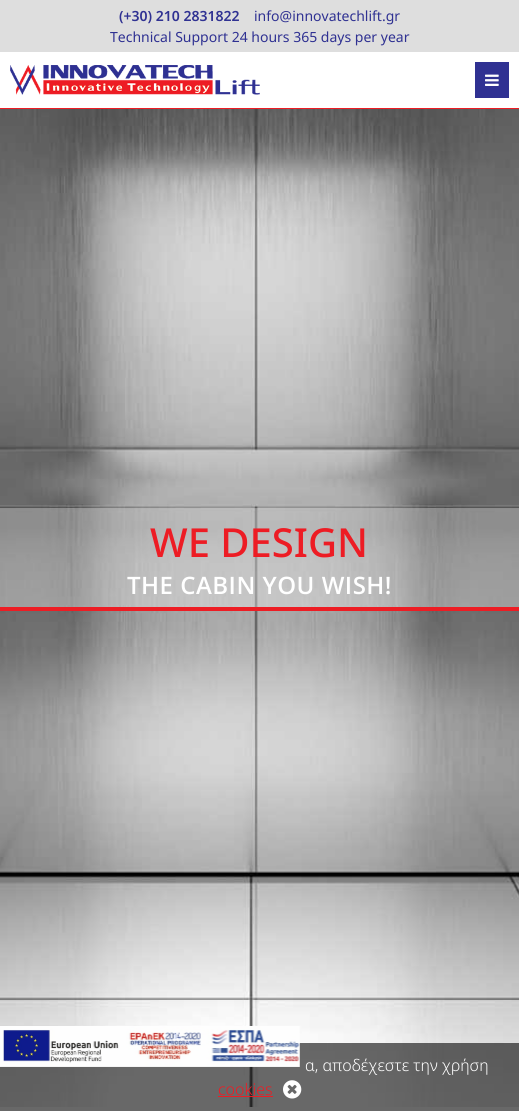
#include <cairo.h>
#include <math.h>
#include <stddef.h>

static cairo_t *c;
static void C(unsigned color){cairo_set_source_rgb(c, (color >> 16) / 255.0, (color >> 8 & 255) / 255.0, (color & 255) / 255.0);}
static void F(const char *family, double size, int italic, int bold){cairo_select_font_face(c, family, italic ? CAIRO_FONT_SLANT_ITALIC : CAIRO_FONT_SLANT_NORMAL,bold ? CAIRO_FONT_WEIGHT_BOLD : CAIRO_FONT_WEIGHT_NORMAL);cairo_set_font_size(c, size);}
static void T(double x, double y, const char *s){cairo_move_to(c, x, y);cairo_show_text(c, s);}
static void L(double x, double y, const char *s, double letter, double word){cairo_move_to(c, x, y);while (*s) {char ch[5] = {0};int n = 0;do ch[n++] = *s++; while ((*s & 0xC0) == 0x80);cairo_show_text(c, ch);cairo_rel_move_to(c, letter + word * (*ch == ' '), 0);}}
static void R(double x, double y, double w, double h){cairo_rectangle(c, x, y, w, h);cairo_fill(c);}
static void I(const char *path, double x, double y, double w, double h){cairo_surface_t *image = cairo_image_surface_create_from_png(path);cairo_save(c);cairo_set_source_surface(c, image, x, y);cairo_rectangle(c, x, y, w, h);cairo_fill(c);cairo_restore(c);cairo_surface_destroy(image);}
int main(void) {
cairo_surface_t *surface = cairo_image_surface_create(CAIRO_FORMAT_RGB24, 519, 1111);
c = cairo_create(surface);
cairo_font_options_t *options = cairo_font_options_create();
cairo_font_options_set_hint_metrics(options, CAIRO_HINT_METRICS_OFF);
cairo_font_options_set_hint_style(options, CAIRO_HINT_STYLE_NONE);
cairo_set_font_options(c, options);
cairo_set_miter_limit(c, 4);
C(0xffffff);
cairo_paint(c);
C(0xed1c24);
R(0,108,519,1);
C(0xdedede);
R(0,0,519,52);
F("Noto Sans SemiBold",14,0,0);
C(0x2f3192);
T(119,21,"(+30) 210 2831822");
F("Noto Sans",14,0,0);
T(254,21,"info@innovatechlift.gr");
T(110,42,"Technical Support 24 hours 365 days per year");
I("1.png",10,65,250,30);
R(475,62,34,36);
I("2.png",485,74,14,12);
I("3.png",0,109,519,998);
cairo_set_source_rgba(c,1,1,1,0.35);
R(0,508,519,99);
F("Noto Sans Medium",40,0,0);
C(0xed1c24);
T(150,557,"WE DESIGN");
F("Open Sans SemiBold",24,0,0);
C(0xffffff);
L(127,594,"THE CABIN YOU WISH!",.5,0);
C(0xed1d24);
R(0,607,519,4);
cairo_set_source_rgba(c,0,0,0,0.59);
R(0,1043,519,68);
I("4.png",0,1026,300,41);
F("Noto Sans Light",16,0,0);
C(0xffffff);
T(305,1071,"α, αποδέχεστε την χρήση");
C(0xed1c24);
T(218,1095,"cookies");
C(0xed1d24);
R(218,1096,55,1);
I("5.png",283,1080,19,19);
cairo_surface_write_to_png(surface, "o.png");
cairo_font_options_destroy(options);
cairo_destroy(c);
cairo_surface_destroy(surface);
return 0;
}
